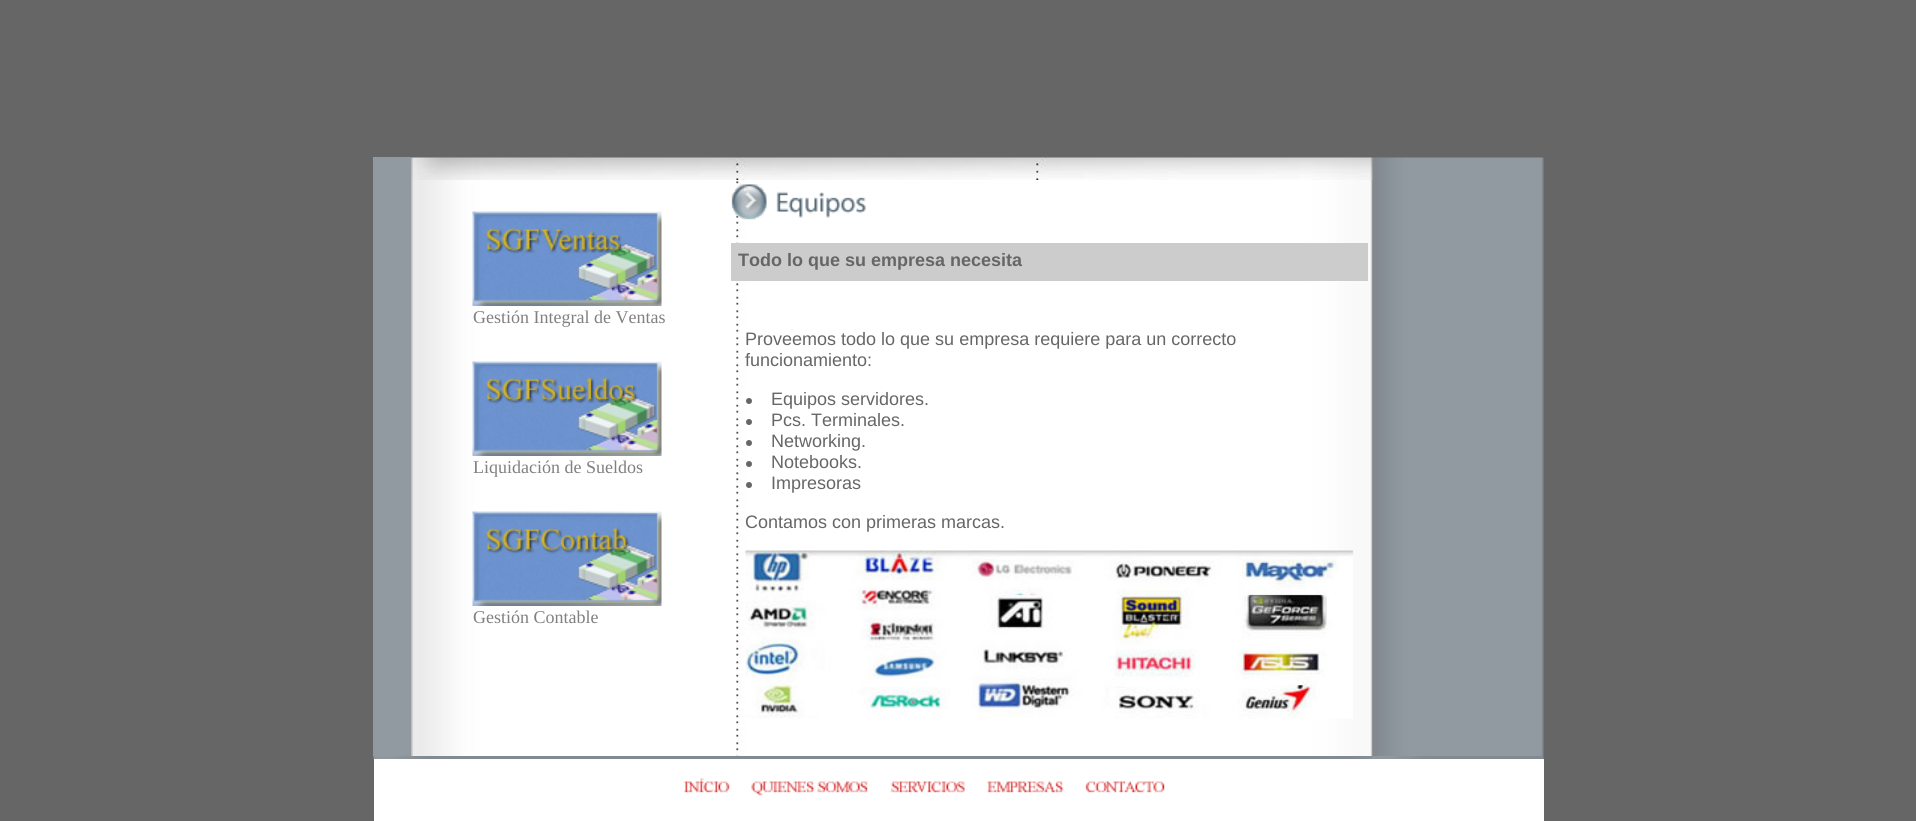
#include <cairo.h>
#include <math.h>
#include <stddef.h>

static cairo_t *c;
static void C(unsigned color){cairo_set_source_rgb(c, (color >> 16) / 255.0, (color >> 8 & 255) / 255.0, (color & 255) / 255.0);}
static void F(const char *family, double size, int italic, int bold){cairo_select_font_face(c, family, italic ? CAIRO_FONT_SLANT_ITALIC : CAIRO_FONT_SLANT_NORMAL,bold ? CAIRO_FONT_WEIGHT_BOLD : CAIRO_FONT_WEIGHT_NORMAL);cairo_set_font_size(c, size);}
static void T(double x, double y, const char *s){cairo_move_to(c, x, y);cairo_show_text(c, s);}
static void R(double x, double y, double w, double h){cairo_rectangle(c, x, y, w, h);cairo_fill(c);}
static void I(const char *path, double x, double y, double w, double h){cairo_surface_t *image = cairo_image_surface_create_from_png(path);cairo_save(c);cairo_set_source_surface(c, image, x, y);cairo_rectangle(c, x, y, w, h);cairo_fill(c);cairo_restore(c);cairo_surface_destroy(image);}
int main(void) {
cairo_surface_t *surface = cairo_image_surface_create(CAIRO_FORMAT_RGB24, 1916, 821);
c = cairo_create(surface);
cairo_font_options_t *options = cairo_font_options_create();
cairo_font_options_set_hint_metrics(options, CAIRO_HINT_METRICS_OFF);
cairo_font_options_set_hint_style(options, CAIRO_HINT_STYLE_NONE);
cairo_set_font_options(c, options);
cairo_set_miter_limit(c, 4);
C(0x666666);
cairo_paint(c);
C(0x919aa1);
R(373,157,38,599);
I("2.png",411,180,962,576);
I("8.png",1372,157,172,599);
I("1.png",411,157,962,23);
I("3.png",472,211,190,95);
F("Liberation Serif",18,0,0);
C(0x808080);
T(473,323,"Gestión Integral de Ventas");
I("4.png",472,361,190,95);
T(473,473,"Liquidación de Sueldos");
I("5.png",472,511,190,95);
T(473,623,"Gestión Contable");
I("6.png",731,184,135,36);
C(0xcccccc);
R(731,243,637,38);
F("Liberation Sans",18,0,1);
C(0x666666);
T(738,266,"Todo lo que su empresa necesita");
F("Liberation Sans",18,0,0);
T(745,345,"Proveemos todo lo que su empresa requiere para un correcto");
T(745,366,"funcionamiento:");
cairo_new_path(c);
cairo_arc(c,749,401,3,0,2 * M_PI);
cairo_fill(c);
T(771,405,"Equipos servidores.");
cairo_new_path(c);
cairo_arc(c,749,422,3,0,2 * M_PI);
cairo_fill(c);
T(771,426,"Pcs. Terminales.");
cairo_new_path(c);
cairo_arc(c,749,443,3,0,2 * M_PI);
cairo_fill(c);
T(771,447,"Networking.");
cairo_new_path(c);
cairo_arc(c,749,464,3,0,2 * M_PI);
cairo_fill(c);
T(771,468,"Notebooks.");
cairo_new_path(c);
cairo_arc(c,749,485,3,0,2 * M_PI);
cairo_fill(c);
T(771,489,"Impresoras");
T(745,528,"Contamos con primeras marcas.");
I("7.png",745,550,608,169);
I("9.png",373,756,1171,3);
C(0xffffff);
R(374,759,1170,62);
I("10.png",683,778,47,15);
I("11.png",751,781,117,15);
I("12.png",890,781,75,12);
I("13.png",987,781,77,12);
I("14.png",1085,781,80,12);
cairo_surface_write_to_png(surface, "o.png");
cairo_font_options_destroy(options);
cairo_destroy(c);
cairo_surface_destroy(surface);
return 0;
}
